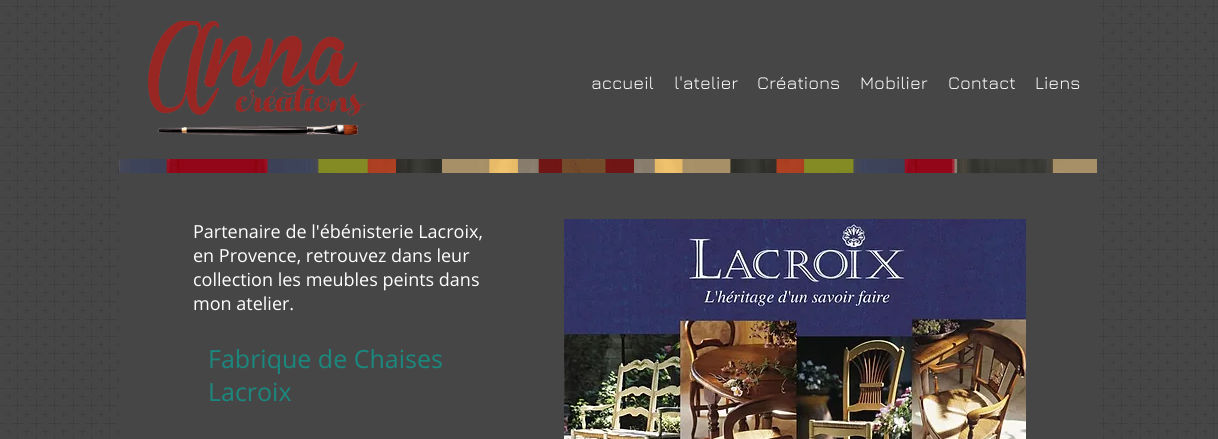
#include <cairo.h>
#include <math.h>
#include <stddef.h>

static cairo_t *c;
static void C(unsigned color){cairo_set_source_rgb(c, (color >> 16) / 255.0, (color >> 8 & 255) / 255.0, (color & 255) / 255.0);}
static void F(const char *family, double size, int italic, int bold){cairo_select_font_face(c, family, italic ? CAIRO_FONT_SLANT_ITALIC : CAIRO_FONT_SLANT_NORMAL,bold ? CAIRO_FONT_WEIGHT_BOLD : CAIRO_FONT_WEIGHT_NORMAL);cairo_set_font_size(c, size);}
static void T(double x, double y, const char *s){cairo_move_to(c, x, y);cairo_show_text(c, s);}
static void R(double x, double y, double w, double h){cairo_rectangle(c, x, y, w, h);cairo_fill(c);}
static void I(const char *path, double x, double y, double w, double h){cairo_surface_t *image = cairo_image_surface_create_from_png(path);cairo_save(c);cairo_set_source_surface(c, image, x, y);cairo_rectangle(c, x, y, w, h);cairo_fill(c);cairo_restore(c);cairo_surface_destroy(image);}
int main(void) {
cairo_surface_t *surface = cairo_image_surface_create(CAIRO_FORMAT_RGB24, 1218, 439);
c = cairo_create(surface);
cairo_font_options_t *options = cairo_font_options_create();
cairo_font_options_set_hint_metrics(options, CAIRO_HINT_METRICS_OFF);
cairo_font_options_set_hint_style(options, CAIRO_HINT_STYLE_NONE);
cairo_set_font_options(c, options);
cairo_set_miter_limit(c, 4);
C(0x474646);
cairo_paint(c);
I("1.png",0,0,1218,439);
C(0x474646);
R(119,0,980,439);
I("2.png",148,21,219,115);
F("Jura",18,0,0);
C(0xffffff);
T(591,89,"accueil");
T(674,89,"l'atelier");
T(757,89,"Créations");
T(860,89,"Mobilier");
T(948,89,"Contact");
T(1035,89,"Liens");
I("3.png",119,159,978,14);
F("Open Sans",18,0,0);
T(193,238,"Partenaire de l'ébénisterie Lacroix,");
T(193,262,"en Provence, retrouvez dans leur");
T(193,286,"collection les meubles peints dans");
T(193,310,"mon atelier.");
I("4.png",564,219,462,220);
F("Open Sans",25,0,0);
C(0x1a887e);
T(208,368,"Fabrique de Chaises");
T(208,401,"Lacroix");
cairo_surface_write_to_png(surface, "o.png");
cairo_font_options_destroy(options);
cairo_destroy(c);
cairo_surface_destroy(surface);
return 0;
}
